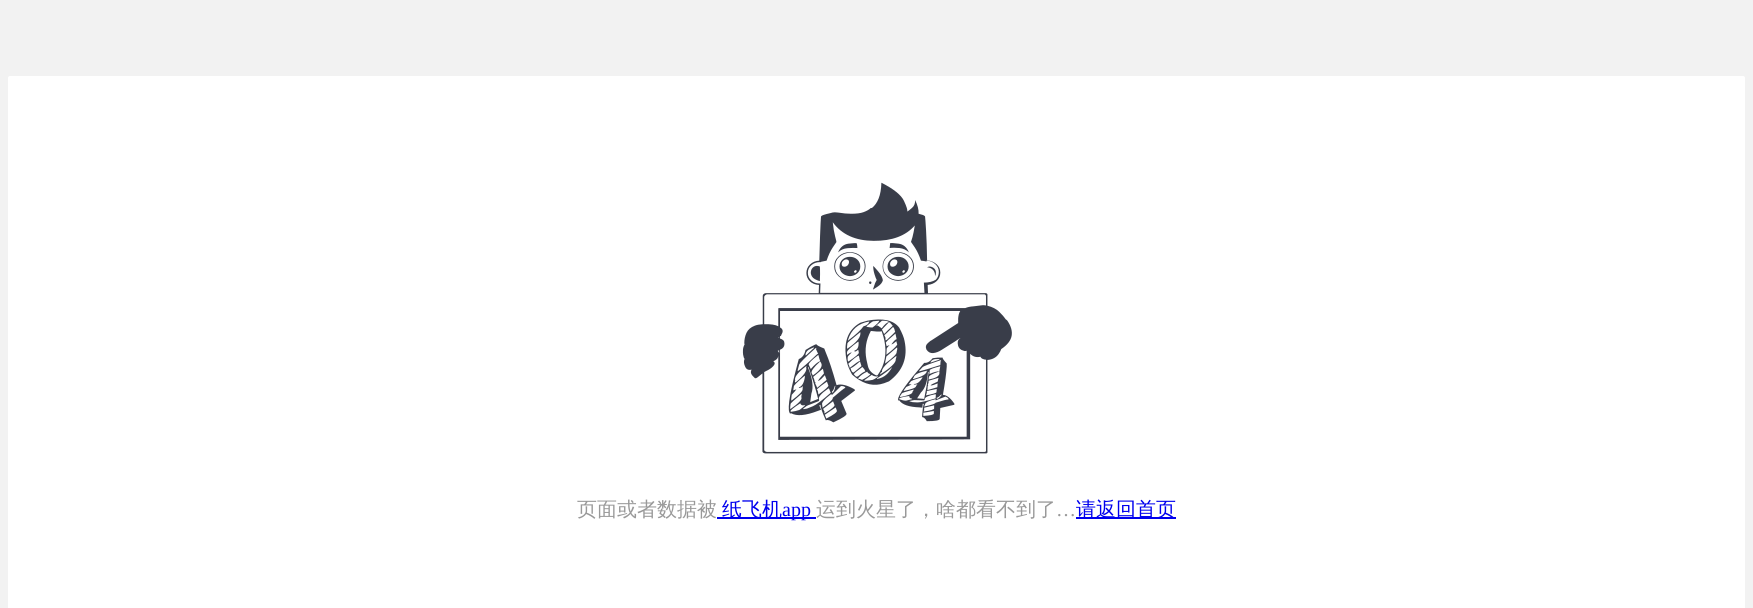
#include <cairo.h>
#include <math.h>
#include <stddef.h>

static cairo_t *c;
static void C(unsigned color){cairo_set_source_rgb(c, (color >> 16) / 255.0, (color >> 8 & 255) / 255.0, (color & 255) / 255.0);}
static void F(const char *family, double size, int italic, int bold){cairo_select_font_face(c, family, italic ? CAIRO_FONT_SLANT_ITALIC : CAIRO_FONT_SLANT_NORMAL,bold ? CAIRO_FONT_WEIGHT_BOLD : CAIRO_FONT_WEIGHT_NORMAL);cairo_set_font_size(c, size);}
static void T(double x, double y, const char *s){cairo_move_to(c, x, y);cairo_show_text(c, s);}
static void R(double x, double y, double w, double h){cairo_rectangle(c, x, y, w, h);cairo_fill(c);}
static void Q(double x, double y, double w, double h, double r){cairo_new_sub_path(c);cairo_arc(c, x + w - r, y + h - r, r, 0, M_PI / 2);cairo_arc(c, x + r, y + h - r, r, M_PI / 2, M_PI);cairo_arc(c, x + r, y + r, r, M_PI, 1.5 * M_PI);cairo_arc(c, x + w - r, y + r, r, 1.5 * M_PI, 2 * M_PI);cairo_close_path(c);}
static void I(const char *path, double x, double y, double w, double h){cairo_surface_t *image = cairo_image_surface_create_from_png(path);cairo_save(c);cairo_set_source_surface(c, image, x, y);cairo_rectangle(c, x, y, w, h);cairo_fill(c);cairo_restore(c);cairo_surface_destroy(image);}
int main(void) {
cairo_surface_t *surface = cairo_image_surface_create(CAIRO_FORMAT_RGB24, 1753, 608);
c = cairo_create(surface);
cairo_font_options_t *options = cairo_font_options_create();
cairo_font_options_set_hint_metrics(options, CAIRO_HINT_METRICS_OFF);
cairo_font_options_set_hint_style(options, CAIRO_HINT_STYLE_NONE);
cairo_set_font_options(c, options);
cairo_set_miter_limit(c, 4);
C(0xf2f2f2);
cairo_paint(c);
C(0xffffff);
Q(8,76,1737,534,2);
cairo_fill(c);
I("1.png",742,182,270,272);
F("WenQuanYi Zen Hei Medium",20,0,0);
C(0x999999);
T(577,516,"页面或者数据被");
C(0x0000ee);
R(717,517,99,2);
T(722,516,"纸飞机");
F("Liberation Serif",20,0,0);
T(782,516,"app");
F("WenQuanYi Zen Hei Medium",20,0,0);
C(0x999999);
T(816,516,"运到火星了，啥都看不到了");
F("Liberation Serif",20,0,0);
T(1056,516,"…");
C(0x0000ee);
R(1076,517,100,2);
F("WenQuanYi Zen Hei Medium",20,0,0);
T(1076,516,"请返回首页");
cairo_surface_write_to_png(surface, "o.png");
cairo_font_options_destroy(options);
cairo_destroy(c);
cairo_surface_destroy(surface);
return 0;
}
